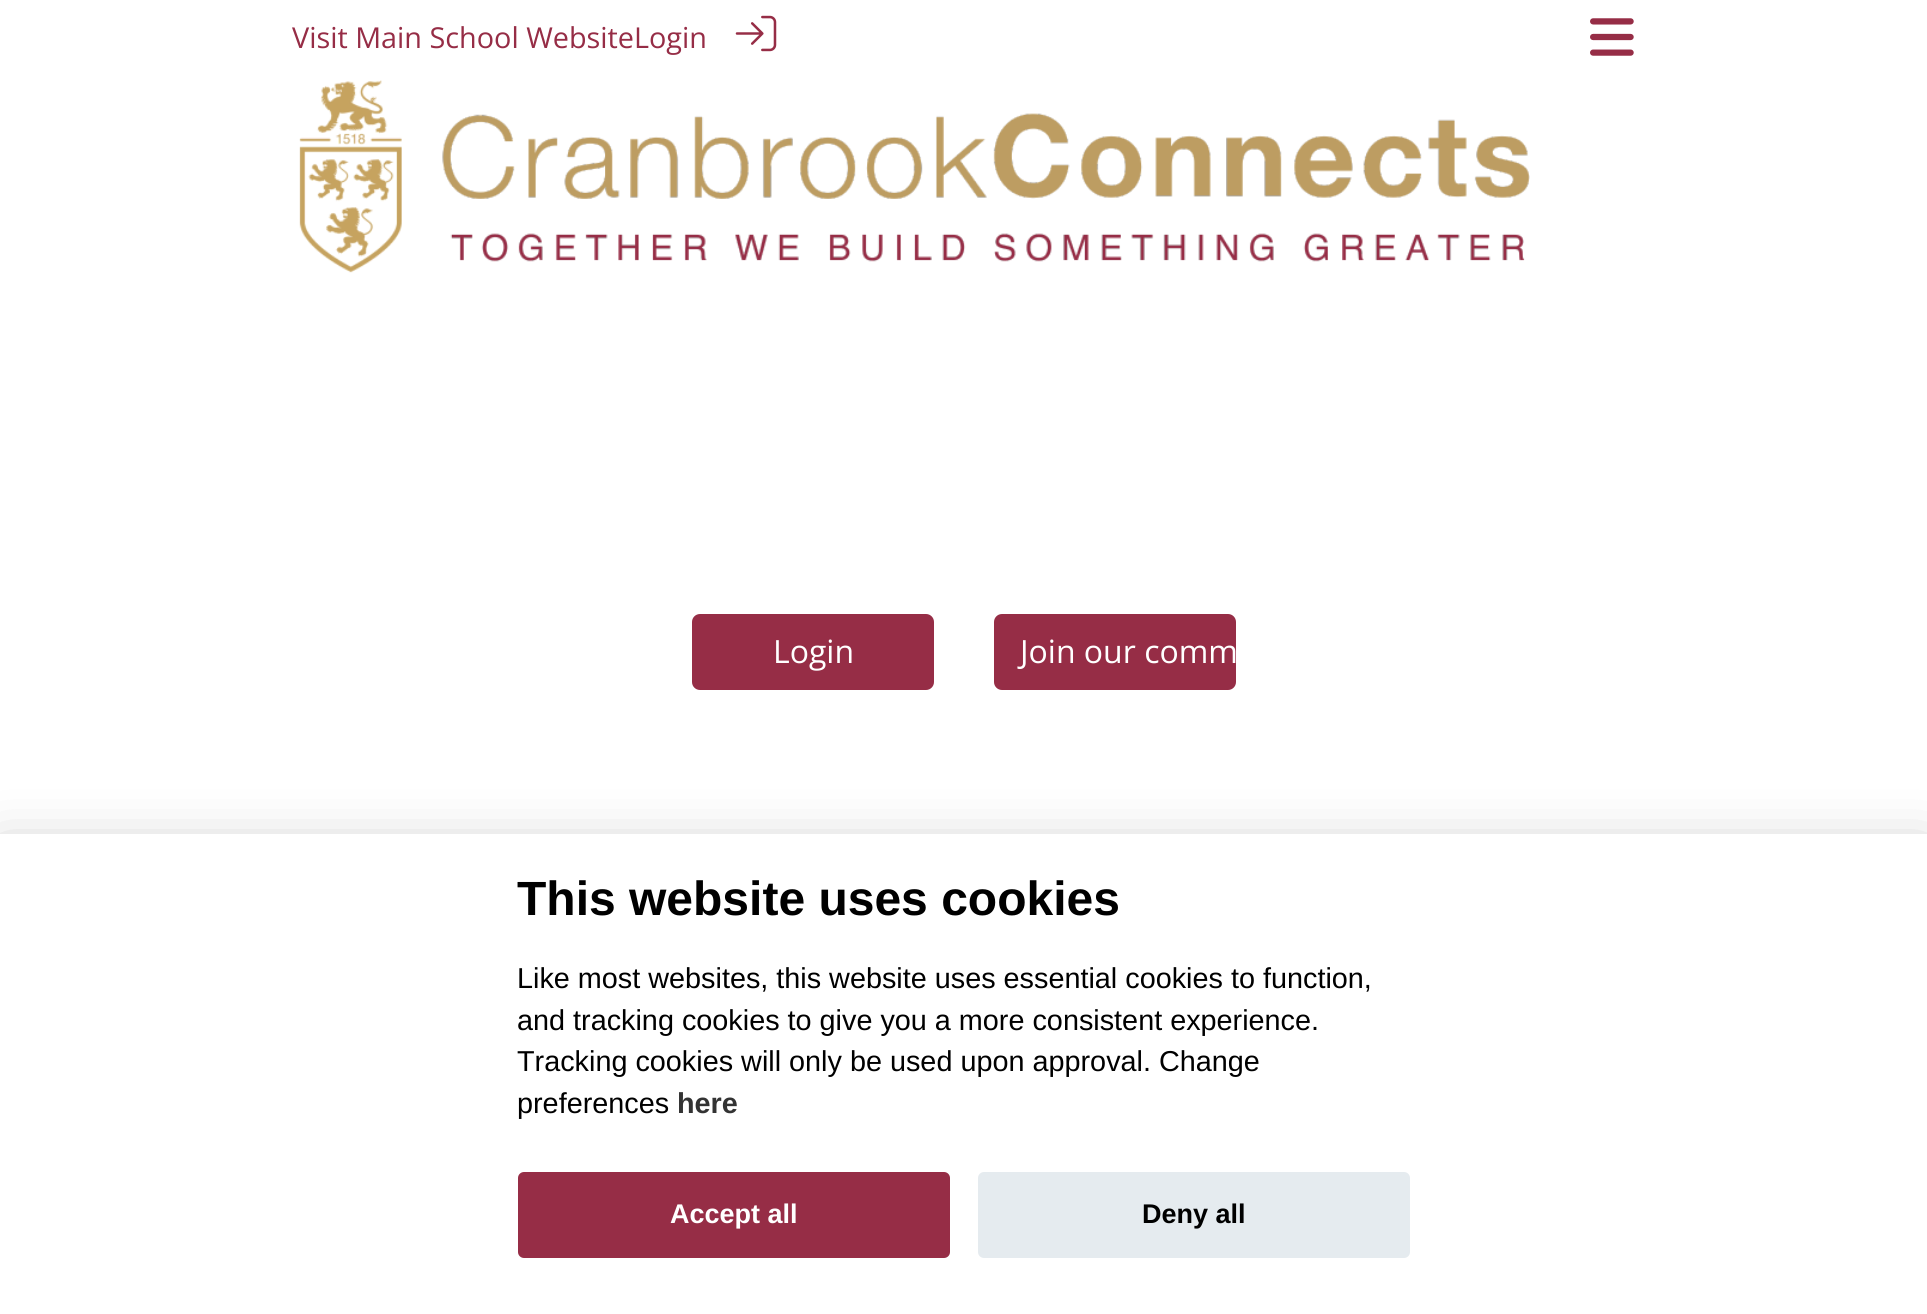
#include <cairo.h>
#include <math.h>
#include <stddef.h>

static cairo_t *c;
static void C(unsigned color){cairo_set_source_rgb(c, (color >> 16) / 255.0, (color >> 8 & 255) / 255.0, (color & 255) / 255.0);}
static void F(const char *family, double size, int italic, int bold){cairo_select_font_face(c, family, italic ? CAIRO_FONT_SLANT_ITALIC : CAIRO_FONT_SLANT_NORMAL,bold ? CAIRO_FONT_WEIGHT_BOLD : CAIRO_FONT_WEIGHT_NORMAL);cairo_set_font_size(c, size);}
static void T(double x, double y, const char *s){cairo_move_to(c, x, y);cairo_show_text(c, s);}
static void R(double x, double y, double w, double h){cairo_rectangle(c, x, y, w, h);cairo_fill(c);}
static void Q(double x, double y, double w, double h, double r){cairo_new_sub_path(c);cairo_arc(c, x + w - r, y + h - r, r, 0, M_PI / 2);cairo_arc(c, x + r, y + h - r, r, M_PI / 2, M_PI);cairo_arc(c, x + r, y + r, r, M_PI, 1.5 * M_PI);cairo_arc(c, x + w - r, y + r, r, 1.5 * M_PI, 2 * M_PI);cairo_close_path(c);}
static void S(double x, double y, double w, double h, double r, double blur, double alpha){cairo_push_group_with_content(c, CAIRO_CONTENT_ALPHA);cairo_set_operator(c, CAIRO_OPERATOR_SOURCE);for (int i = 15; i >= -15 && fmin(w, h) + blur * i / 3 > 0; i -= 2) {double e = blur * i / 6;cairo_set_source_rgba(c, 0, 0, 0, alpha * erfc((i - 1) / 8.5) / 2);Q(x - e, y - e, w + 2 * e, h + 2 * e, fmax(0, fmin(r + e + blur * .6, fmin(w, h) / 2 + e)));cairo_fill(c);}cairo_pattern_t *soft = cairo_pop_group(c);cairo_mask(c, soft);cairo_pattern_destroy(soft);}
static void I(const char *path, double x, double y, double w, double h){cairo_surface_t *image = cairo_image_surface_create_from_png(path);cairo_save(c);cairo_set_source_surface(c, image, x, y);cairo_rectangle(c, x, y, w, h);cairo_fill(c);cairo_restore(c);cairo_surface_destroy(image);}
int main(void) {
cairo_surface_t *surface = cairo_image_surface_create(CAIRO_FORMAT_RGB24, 1927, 1314);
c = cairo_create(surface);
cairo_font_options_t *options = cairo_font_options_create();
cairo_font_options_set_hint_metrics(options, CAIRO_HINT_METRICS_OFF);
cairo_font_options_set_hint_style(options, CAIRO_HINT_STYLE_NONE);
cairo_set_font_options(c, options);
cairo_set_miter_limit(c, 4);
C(0xffffff);
cairo_paint(c);
F("Open Sans",28.8,0,0);
C(0x962d46);
T(292,48,"Visit Main School WebsiteLogin");
I("1.png",735,15,42,37);
I("2.png",1590,18,44,38);
I("3.png",299,80,1231,193);
Q(692,614,242,76,8);
cairo_fill(c);
F("Open Sans",32,0,0);
C(0xffffff);
T(773,663,"Login");
C(0x962d46);
Q(994,614,242,76,8);
cairo_fill(c);
C(0xffffff);
T(1020,663,"Join our comm");
C(0x020203);
S(0,854,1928,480,0,30,.28);
C(0xffffff);
R(0,834,1927,480);
F("Liberation Sans",48,0,1);
C(0x000000);
T(517,915,"This website uses cookies");
F("Liberation Sans",28.8,0,0);
T(517,988,"Like most websites, this website uses essential cookies to function,");
T(517,1030,"and tracking cookies to give you a more consistent experience.");
T(517,1071,"Tracking cookies will only be used upon approval. Change");
T(517,1113,"preferences");
F("Liberation Sans",28.8,0,1);
C(0x333333);
T(677,1113,"here");
C(0x962d46);
Q(518,1172,432,86,6);
cairo_fill(c);
F("Liberation Sans",27,0,1);
C(0xffffff);
T(670,1223,"Accept all");
C(0xe5ebef);
Q(978,1172,432,86,6);
cairo_fill(c);
C(0x000000);
T(1142,1223,"Deny all");
cairo_surface_write_to_png(surface, "o.png");
cairo_font_options_destroy(options);
cairo_destroy(c);
cairo_surface_destroy(surface);
return 0;
}
